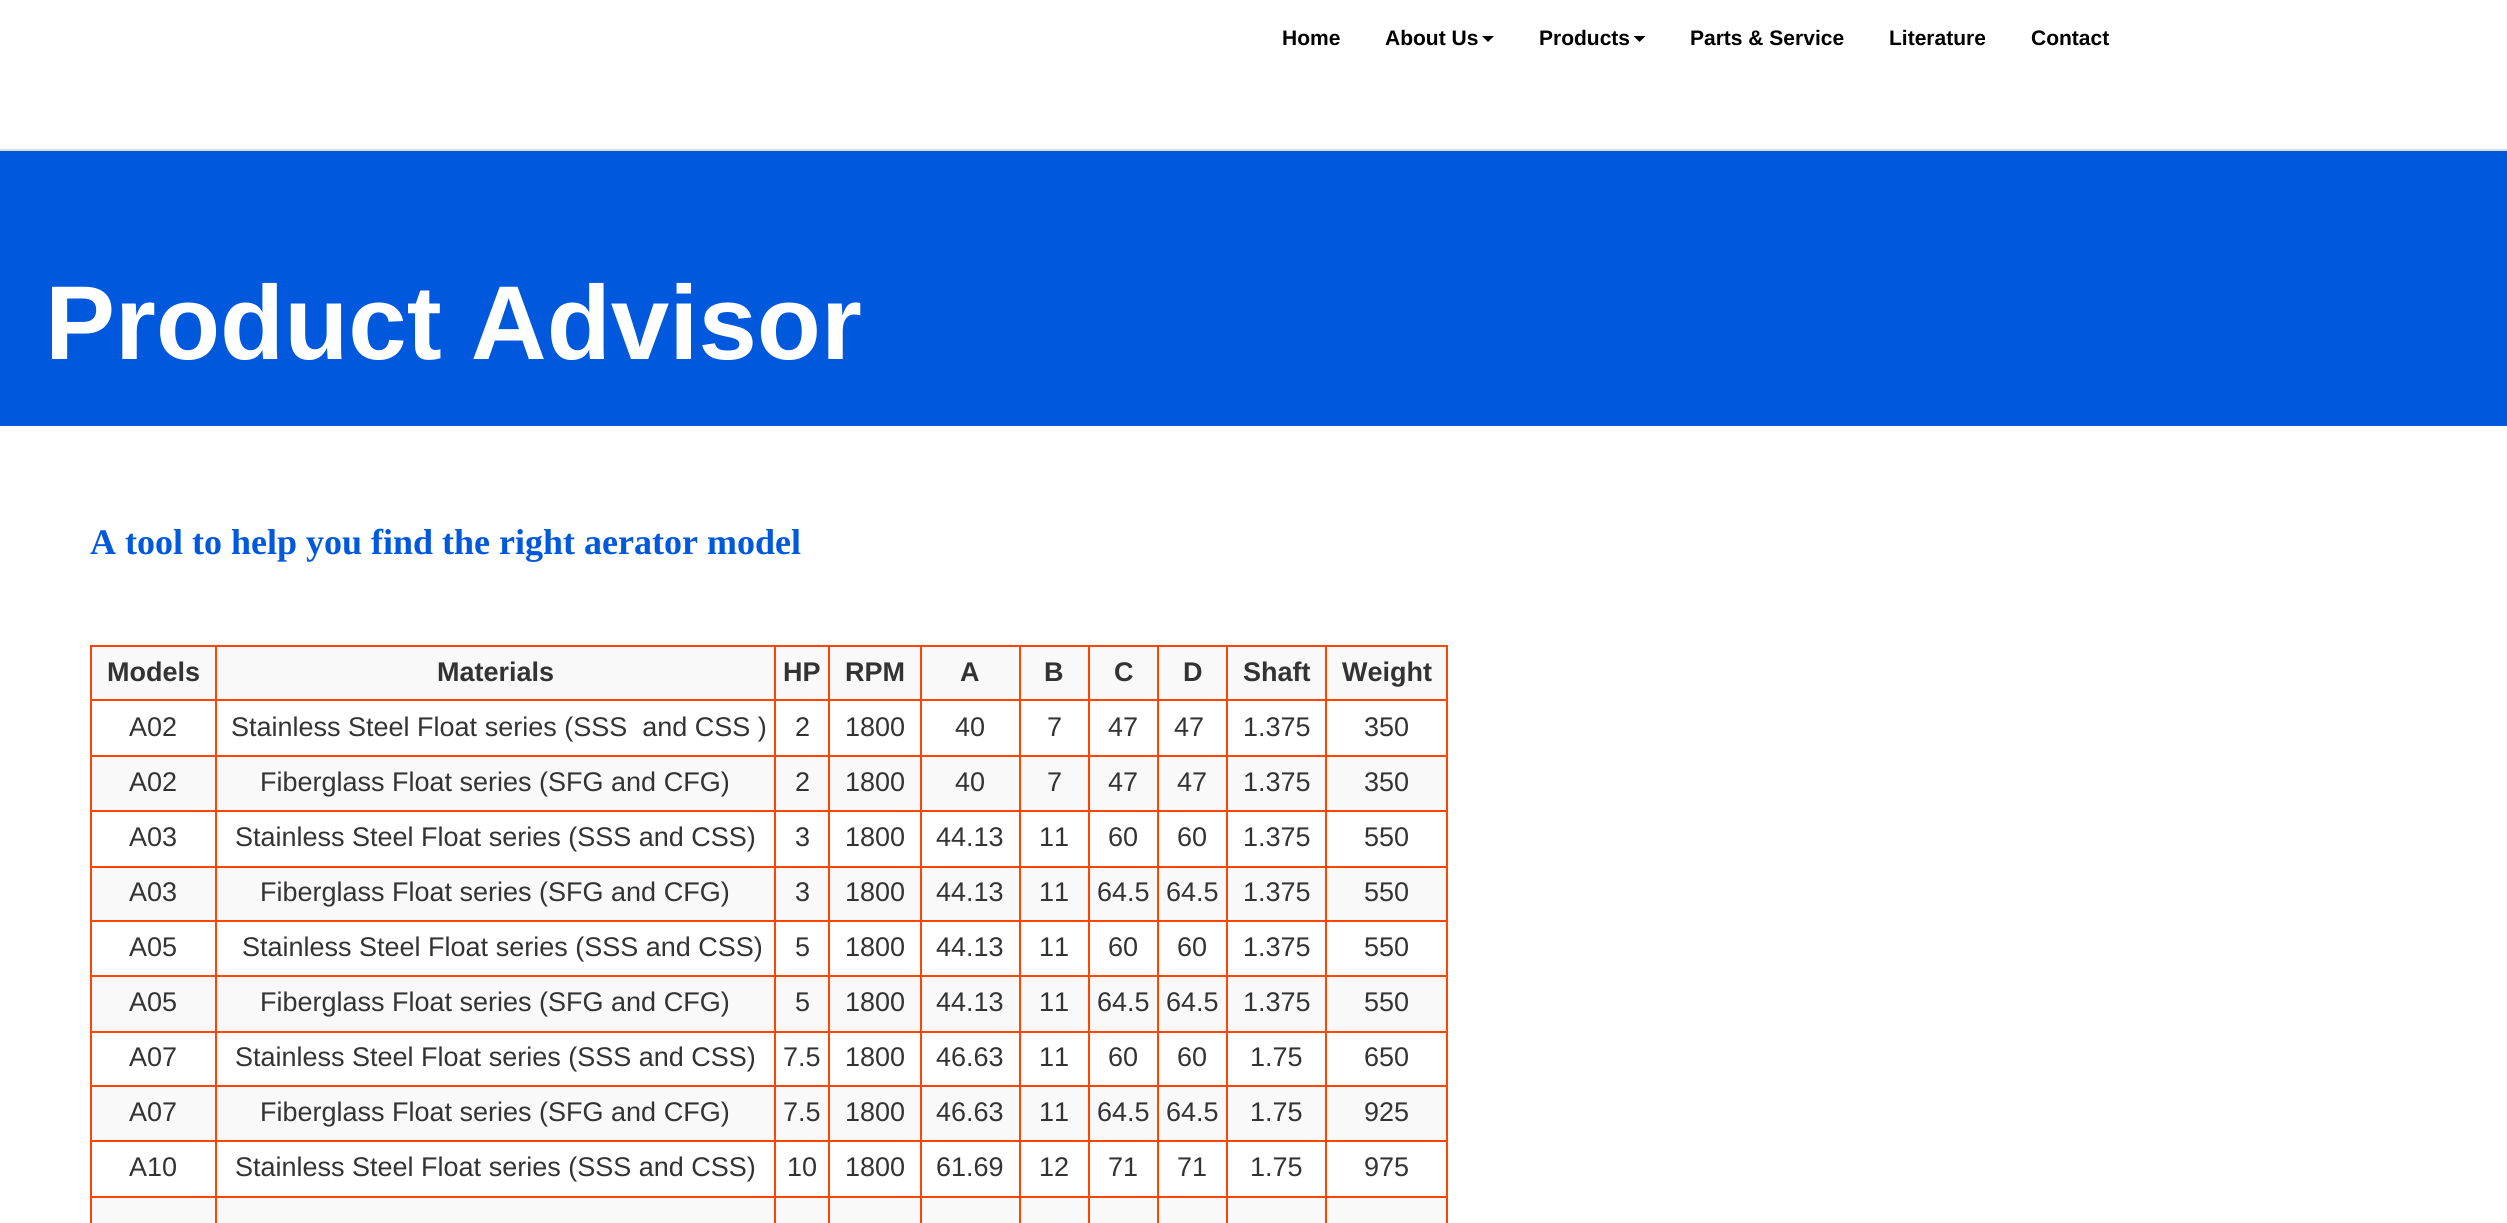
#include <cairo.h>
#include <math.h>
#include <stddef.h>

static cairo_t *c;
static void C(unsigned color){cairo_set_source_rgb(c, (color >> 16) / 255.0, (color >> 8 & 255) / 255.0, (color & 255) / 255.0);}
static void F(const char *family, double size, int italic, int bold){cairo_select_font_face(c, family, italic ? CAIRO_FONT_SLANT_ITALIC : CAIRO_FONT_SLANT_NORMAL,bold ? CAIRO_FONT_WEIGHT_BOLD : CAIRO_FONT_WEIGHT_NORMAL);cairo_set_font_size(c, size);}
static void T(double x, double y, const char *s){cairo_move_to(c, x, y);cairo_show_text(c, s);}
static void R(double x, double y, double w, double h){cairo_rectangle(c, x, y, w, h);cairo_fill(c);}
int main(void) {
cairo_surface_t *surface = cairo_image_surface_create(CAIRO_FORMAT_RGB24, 2507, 1223);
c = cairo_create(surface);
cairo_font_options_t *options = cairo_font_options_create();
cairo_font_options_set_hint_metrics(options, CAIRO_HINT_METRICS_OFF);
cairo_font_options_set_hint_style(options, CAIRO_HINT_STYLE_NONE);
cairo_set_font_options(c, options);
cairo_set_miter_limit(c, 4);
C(0xffffff);
cairo_paint(c);
C(0xdddddd);
R(0,149,2507,2);
F("Liberation Sans",21,0,1);
C(0x000000);
T(1282,45,"Home");
T(1385,45,"About Us");
cairo_new_path(c);
cairo_move_to(c,1482,36);
cairo_line_to(c,1494,36);
cairo_line_to(c,1488,42);
cairo_close_path(c);
cairo_fill(c);
T(1539,45,"Products");
cairo_new_path(c);
cairo_move_to(c,1633.5,36);
cairo_line_to(c,1645.5,36);
cairo_line_to(c,1639.5,42);
cairo_close_path(c);
cairo_fill(c);
T(1690,45,"Parts & Service");
T(1889,45,"Literature");
T(2031,45,"Contact");
C(0x0058dd);
R(0,151,2507,275);
F("Liberation Sans",105,0,1);
C(0xffffff);
T(45,359,"Product Advisor");
F("Liberation Serif",36,0,1);
C(0x0058dd);
T(90,554,"A tool to help you find the right aerator model");
C(0xf9f9f9);
R(92,647,1354,52);
C(0xff4500);
R(1325,645,123,2);
R(1325,699,123,2);
R(1325,755,123,2);
C(0xf9f9f9);
R(92,757,1354,53);
C(0xff4500);
R(1325,810,123,2);
R(1325,866,123,2);
C(0xf9f9f9);
R(92,868,1354,52);
C(0xff4500);
R(1325,920,123,2);
R(1325,975,123,2);
C(0xf9f9f9);
R(92,977,1354,54);
C(0xff4500);
R(1325,1031,123,2);
R(1325,1085,123,2);
C(0xf9f9f9);
R(92,1087,1354,53);
C(0xff4500);
R(1325,1140,123,2);
R(1325,1196,123,2);
C(0xf9f9f9);
R(92,1198,1354,25);
C(0xff4500);
R(1325,1196,2,27);
R(1226,1196,100,2);
R(1325,1140,2,57);
R(1226,1140,100,2);
R(1325,1085,2,57);
R(1226,1085,100,2);
R(1325,1031,2,55);
R(1226,1031,100,2);
R(1325,975,2,57);
R(1226,975,100,2);
R(1325,920,2,57);
R(1226,920,100,2);
R(1325,866,2,55);
R(1226,866,100,2);
R(1325,810,2,57);
R(1226,810,100,2);
R(1325,755,2,57);
R(1226,755,100,2);
R(1325,699,2,57);
R(1226,699,100,2);
R(1325,645,2,56);
R(1226,645,100,2);
R(1226,1196,2,27);
R(1157,1196,70,2);
R(1226,1140,2,57);
R(1157,1140,70,2);
R(1226,1085,2,57);
R(1157,1085,70,2);
R(1226,1031,2,55);
R(1157,1031,70,2);
R(1226,975,2,57);
R(1157,975,70,2);
R(1226,920,2,57);
R(1157,920,70,2);
R(1226,866,2,55);
R(1157,866,70,2);
R(1226,810,2,57);
R(1157,810,70,2);
R(1226,755,2,57);
R(1157,755,70,2);
R(1226,699,2,57);
R(1157,699,70,2);
R(1226,645,2,56);
R(1157,645,70,2);
R(1157,1196,2,27);
R(1088,1196,70,2);
R(1157,1140,2,57);
R(1088,1140,70,2);
R(1157,1085,2,57);
R(1088,1085,70,2);
R(1157,1031,2,55);
R(1088,1031,70,2);
R(1157,975,2,57);
R(1088,975,70,2);
R(1157,920,2,57);
R(1088,920,70,2);
R(1157,866,2,55);
R(1088,866,70,2);
R(1157,810,2,57);
R(1088,810,70,2);
R(1157,755,2,57);
R(1088,755,70,2);
R(1157,699,2,57);
R(1088,699,70,2);
R(1157,645,2,56);
R(1088,645,70,2);
R(1088,1196,2,27);
R(1019,1196,70,2);
R(1088,1140,2,57);
R(1019,1140,70,2);
R(1088,1085,2,57);
R(1019,1085,70,2);
R(1088,1031,2,55);
R(1019,1031,70,2);
R(1088,975,2,57);
R(1019,975,70,2);
R(1088,920,2,57);
R(1019,920,70,2);
R(1088,866,2,55);
R(1019,866,70,2);
R(1088,810,2,57);
R(1019,810,70,2);
R(1088,755,2,57);
R(1019,755,70,2);
R(1088,699,2,57);
R(1019,699,70,2);
R(1088,645,2,56);
R(1019,645,70,2);
R(1019,1196,2,27);
R(920,1196,100,2);
R(1019,1140,2,57);
R(920,1140,100,2);
R(1019,1085,2,57);
R(920,1085,100,2);
R(1019,1031,2,55);
R(920,1031,100,2);
R(1019,975,2,57);
R(920,975,100,2);
R(1019,920,2,57);
R(920,920,100,2);
R(1019,866,2,55);
R(920,866,100,2);
R(1019,810,2,57);
R(920,810,100,2);
R(1019,755,2,57);
R(920,755,100,2);
R(1019,699,2,57);
R(920,699,100,2);
R(1019,645,2,56);
R(920,645,100,2);
R(920,1196,2,27);
R(828,1196,93,2);
R(920,1140,2,57);
R(828,1140,93,2);
R(920,1085,2,57);
R(828,1085,93,2);
R(920,1031,2,55);
R(828,1031,93,2);
R(920,975,2,57);
R(828,975,93,2);
R(920,920,2,57);
R(828,920,93,2);
R(920,866,2,55);
R(828,866,93,2);
R(920,810,2,57);
R(828,810,93,2);
R(920,755,2,57);
R(828,755,93,2);
R(920,699,2,57);
R(828,699,93,2);
R(920,645,2,56);
R(828,645,93,2);
R(828,1196,2,27);
R(774,1196,56,2);
R(828,1140,2,57);
R(774,1140,56,2);
R(828,1085,2,57);
R(774,1085,56,2);
R(828,1031,2,55);
R(774,1031,56,2);
R(828,975,2,57);
R(774,975,56,2);
R(828,920,2,57);
R(774,920,56,2);
R(828,866,2,55);
R(774,866,56,2);
R(828,810,2,57);
R(774,810,56,2);
R(828,755,2,57);
R(774,755,56,2);
R(828,699,2,57);
R(774,699,56,2);
R(828,645,2,56);
R(774,645,56,2);
R(774,1196,2,27);
R(215,1196,561,2);
R(774,1140,2,57);
R(215,1140,561,2);
R(774,1085,2,57);
R(215,1085,561,2);
R(774,1031,2,55);
R(215,1031,561,2);
R(774,975,2,57);
R(215,975,561,2);
R(774,920,2,57);
R(215,920,561,2);
R(774,866,2,55);
R(215,866,561,2);
R(774,810,2,57);
R(215,810,561,2);
R(774,755,2,57);
R(215,755,561,2);
R(774,699,2,57);
R(215,699,561,2);
R(774,645,2,56);
R(215,645,561,2);
R(215,1196,2,27);
R(90,1196,126,2);
R(215,1140,2,57);
R(90,1140,126,2);
R(215,1085,2,57);
R(90,1085,126,2);
R(215,1031,2,55);
R(90,1031,126,2);
R(215,975,2,57);
R(90,975,126,2);
R(215,920,2,57);
R(90,920,126,2);
R(215,866,2,55);
R(90,866,126,2);
R(215,810,2,57);
R(90,810,126,2);
R(215,755,2,57);
R(90,755,126,2);
R(215,699,2,57);
R(90,699,126,2);
R(215,645,2,56);
R(90,645,126,2);
R(90,1196,2,27);
R(90,1140,2,57);
R(90,1085,2,57);
R(90,1031,2,55);
R(90,975,2,57);
R(90,920,2,57);
R(90,866,2,55);
R(90,810,2,57);
R(90,755,2,57);
R(90,699,2,57);
R(90,645,2,56);
F("Liberation Sans",27,0,1);
C(0x333333);
T(107,681,"Models");
T(437,681,"Materials");
T(783,681,"HP");
T(845,681,"RPM");
T(960,681,"A");
T(1044,681,"B");
T(1114,681,"C");
T(1183,681,"D");
T(1243,681,"Shaft");
C(0xff4500);
R(1446,1196,2,27);
R(1446,1140,2,57);
R(1446,1085,2,57);
R(1446,1031,2,55);
R(1446,975,2,57);
R(1446,920,2,57);
R(1446,866,2,55);
R(1446,810,2,57);
R(1446,755,2,57);
R(1446,699,2,57);
R(1446,645,2,56);
C(0x333333);
T(1342,681,"Weight");
F("Liberation Sans",27,0,0);
T(129,736,"A02");
T(231,736,"Stainless Steel Float series (SSS  and CSS )");
T(795,736,"2");
T(845,736,"1800");
T(955,736,"40");
T(1047,736,"7");
T(1108,736,"47");
T(1174,736,"47");
T(1243,736,"1.375");
T(1364,736,"350");
T(129,791,"A02");
T(260,791,"Fiberglass Float series (SFG and CFG)");
T(795,791,"2");
T(845,791,"1800");
T(955,791,"40");
T(1047,791,"7");
T(1108,791,"47");
T(1177,791,"47");
T(1243,791,"1.375");
T(1364,791,"350");
T(129,846,"A03");
T(235,846,"Stainless Steel Float series (SSS and CSS)");
T(795,846,"3");
T(845,846,"1800");
T(936,846,"44.13");
T(1039,846,"11");
T(1108,846,"60");
T(1177,846,"60");
T(1243,846,"1.375");
T(1364,846,"550");
T(129,901,"A03");
T(260,901,"Fiberglass Float series (SFG and CFG)");
T(795,901,"3");
T(845,901,"1800");
T(936,901,"44.13");
T(1039,901,"11");
T(1097,901,"64.5");
T(1166,901,"64.5");
T(1243,901,"1.375");
T(1364,901,"550");
T(129,956,"A05");
T(242,956,"Stainless Steel Float series (SSS and CSS)");
T(795,956,"5");
T(845,956,"1800");
T(936,956,"44.13");
T(1039,956,"11");
T(1108,956,"60");
T(1177,956,"60");
T(1243,956,"1.375");
T(1364,956,"550");
T(129,1011,"A05");
T(260,1011,"Fiberglass Float series (SFG and CFG)");
T(795,1011,"5");
T(845,1011,"1800");
T(936,1011,"44.13");
T(1039,1011,"11");
T(1097,1011,"64.5");
T(1166,1011,"64.5");
T(1243,1011,"1.375");
T(1364,1011,"550");
T(129,1066,"A07");
T(235,1066,"Stainless Steel Float series (SSS and CSS)");
T(783,1066,"7.5");
T(845,1066,"1800");
T(936,1066,"46.63");
T(1039,1066,"11");
T(1108,1066,"60");
T(1177,1066,"60");
T(1250,1066,"1.75");
T(1364,1066,"650");
T(129,1121,"A07");
T(260,1121,"Fiberglass Float series (SFG and CFG)");
T(783,1121,"7.5");
T(845,1121,"1800");
T(936,1121,"46.63");
T(1039,1121,"11");
T(1097,1121,"64.5");
T(1166,1121,"64.5");
T(1250,1121,"1.75");
T(1364,1121,"925");
T(129,1176,"A10");
T(235,1176,"Stainless Steel Float series (SSS and CSS)");
T(787,1176,"10");
T(845,1176,"1800");
T(936,1176,"61.69");
T(1039,1176,"12");
T(1108,1176,"71");
T(1177,1176,"71");
T(1250,1176,"1.75");
T(1364,1176,"975");
cairo_surface_write_to_png(surface, "o.png");
cairo_font_options_destroy(options);
cairo_destroy(c);
cairo_surface_destroy(surface);
return 0;
}
